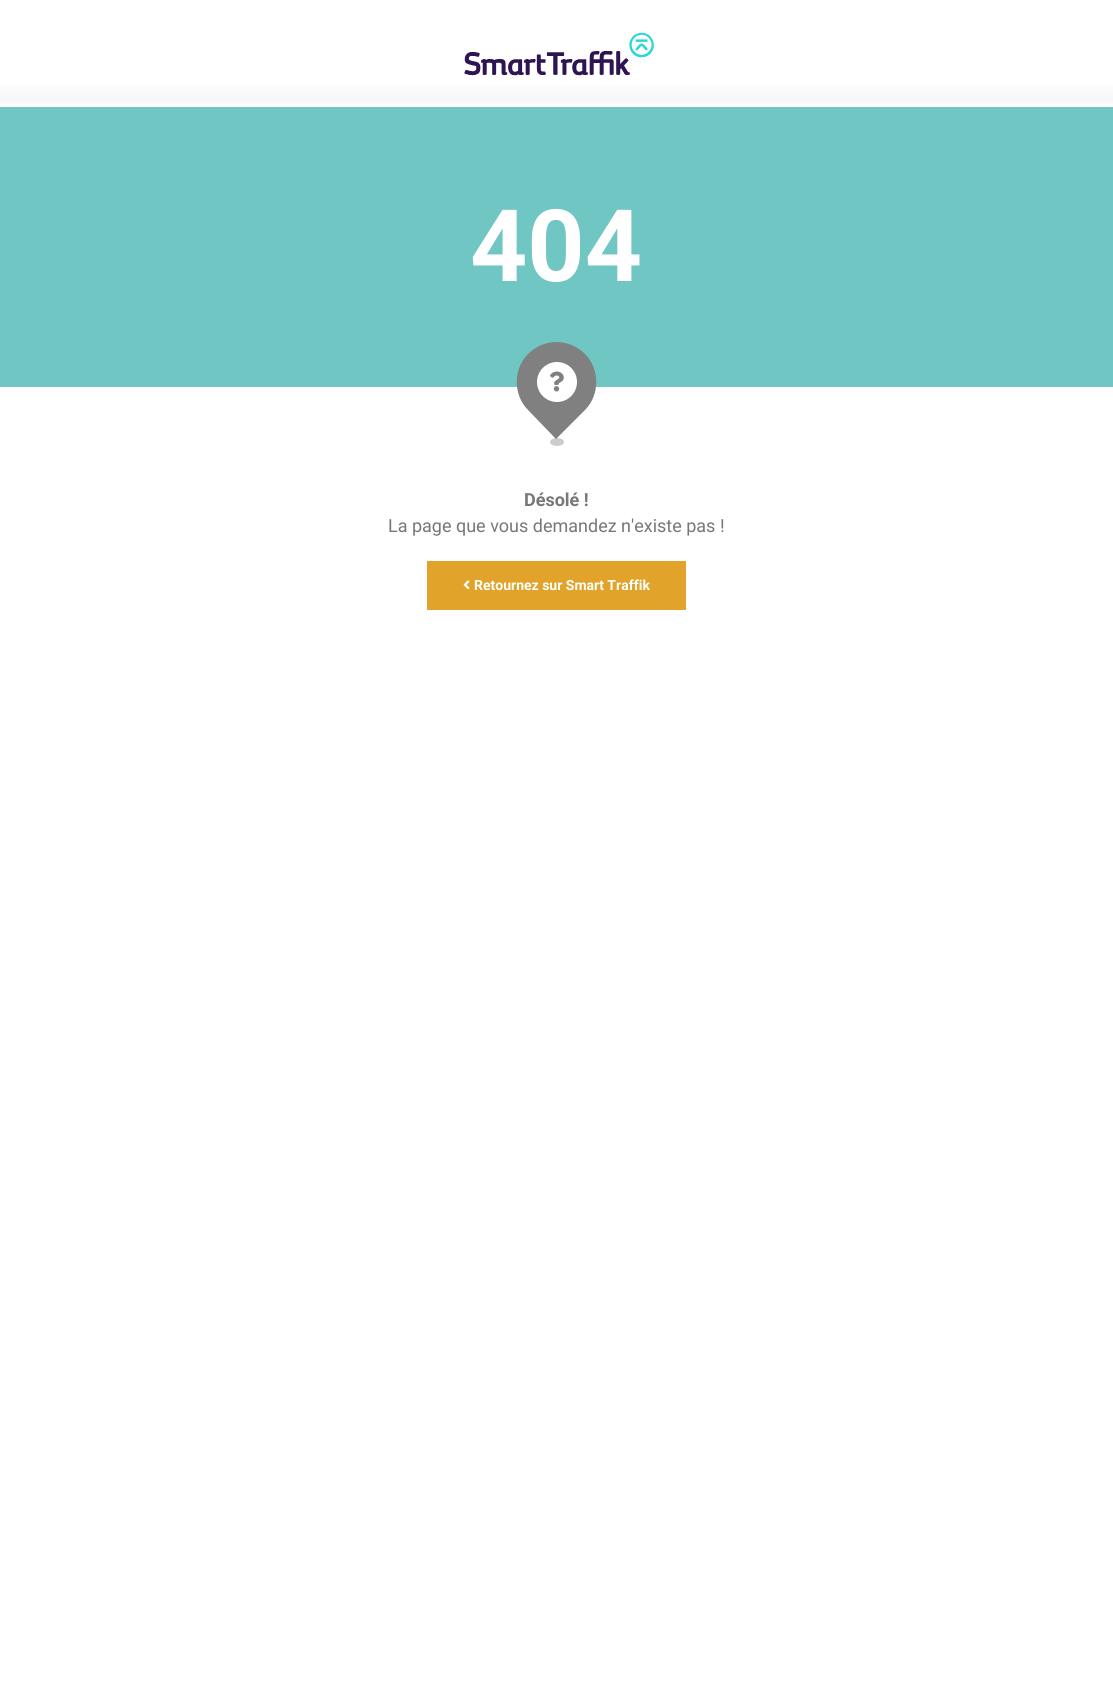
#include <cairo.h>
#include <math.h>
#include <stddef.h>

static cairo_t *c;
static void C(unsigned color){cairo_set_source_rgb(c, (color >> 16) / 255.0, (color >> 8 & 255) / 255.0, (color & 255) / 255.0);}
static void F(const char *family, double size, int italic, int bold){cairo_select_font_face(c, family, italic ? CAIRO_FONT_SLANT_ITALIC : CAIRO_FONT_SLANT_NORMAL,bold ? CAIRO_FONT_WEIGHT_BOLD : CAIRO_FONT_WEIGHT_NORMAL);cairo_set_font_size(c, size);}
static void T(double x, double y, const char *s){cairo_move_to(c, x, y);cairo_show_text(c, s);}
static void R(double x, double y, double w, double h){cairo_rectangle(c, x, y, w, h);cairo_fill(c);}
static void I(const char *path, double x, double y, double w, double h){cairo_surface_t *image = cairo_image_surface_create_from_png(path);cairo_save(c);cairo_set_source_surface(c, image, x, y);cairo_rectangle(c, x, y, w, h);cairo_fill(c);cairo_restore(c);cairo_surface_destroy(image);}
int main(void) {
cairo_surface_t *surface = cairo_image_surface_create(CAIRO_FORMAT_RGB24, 1113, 1682);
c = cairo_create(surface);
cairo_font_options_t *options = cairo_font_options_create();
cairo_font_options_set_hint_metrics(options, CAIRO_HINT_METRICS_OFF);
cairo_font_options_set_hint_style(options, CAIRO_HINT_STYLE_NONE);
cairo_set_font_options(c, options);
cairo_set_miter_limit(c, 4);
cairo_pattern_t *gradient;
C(0xffffff);
cairo_paint(c);
gradient = cairo_pattern_create_linear(557,0,557,107);
cairo_pattern_add_color_stop_rgba(gradient,.73,1,1,1,1);
cairo_pattern_add_color_stop_rgba(gradient,.94,0.969,0.969,0.969,1);
cairo_pattern_add_color_stop_rgba(gradient,1,1,1,1,1);
cairo_set_source(c,gradient);
cairo_pattern_destroy(gradient);
R(0,85,1113,20);
I("1.png",464,32,190,44);
C(0x70c6c3);
R(0,107,1113,280);
F("Roboto",100,0,1);
C(0xffffff);
T(470,281,"404");
C(0xcccccc);
cairo_new_path(c);
cairo_move_to(c,557,438);
cairo_curve_to(c,561,438,564,440,564,442);
cairo_curve_to(c,564,444,561,446,557,446);
cairo_curve_to(c,553,446,550,444,550,442);
cairo_curve_to(c,550,440,553,438,557,438);
cairo_close_path(c);
cairo_fill(c);
C(0x808080);
cairo_new_path(c);
cairo_move_to(c,528,354);
cairo_curve_to(c,544,338,569,338,585,354);
cairo_curve_to(c,600,369,600,395,585,410);
cairo_line_to(c,556,439);
cairo_line_to(c,528,410);
cairo_curve_to(c,513,395,513,369,528,354);
cairo_close_path(c);
cairo_fill(c);
C(0xffffff);
cairo_arc(c,557,382,20,0,2 * M_PI);
cairo_fill(c);
I("2.png",550,371,14,21);
F("Roboto",18,0,1);
C(0x777777);
T(524,506,"Désolé !");
F("Roboto",18,0,0);
T(388,532,"La page que vous demandez n'existe pas !");
C(0xe1a329);
R(427,561,259,49);
I("3.png",463,580,7,10);
F("Roboto",14,0,1);
C(0xffffff);
T(474,590,"Retournez sur Smart Traffik");
cairo_surface_write_to_png(surface, "o.png");
cairo_font_options_destroy(options);
cairo_destroy(c);
cairo_surface_destroy(surface);
return 0;
}
